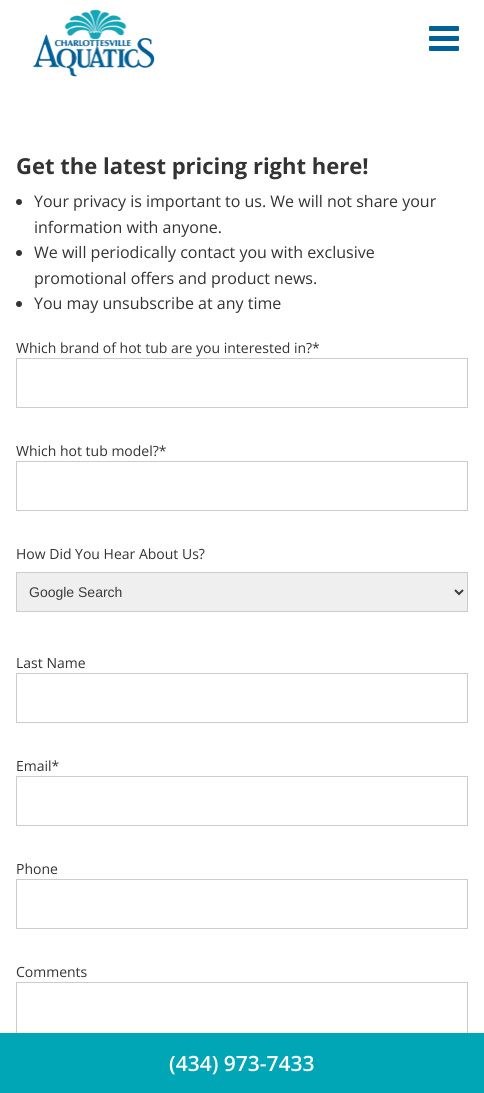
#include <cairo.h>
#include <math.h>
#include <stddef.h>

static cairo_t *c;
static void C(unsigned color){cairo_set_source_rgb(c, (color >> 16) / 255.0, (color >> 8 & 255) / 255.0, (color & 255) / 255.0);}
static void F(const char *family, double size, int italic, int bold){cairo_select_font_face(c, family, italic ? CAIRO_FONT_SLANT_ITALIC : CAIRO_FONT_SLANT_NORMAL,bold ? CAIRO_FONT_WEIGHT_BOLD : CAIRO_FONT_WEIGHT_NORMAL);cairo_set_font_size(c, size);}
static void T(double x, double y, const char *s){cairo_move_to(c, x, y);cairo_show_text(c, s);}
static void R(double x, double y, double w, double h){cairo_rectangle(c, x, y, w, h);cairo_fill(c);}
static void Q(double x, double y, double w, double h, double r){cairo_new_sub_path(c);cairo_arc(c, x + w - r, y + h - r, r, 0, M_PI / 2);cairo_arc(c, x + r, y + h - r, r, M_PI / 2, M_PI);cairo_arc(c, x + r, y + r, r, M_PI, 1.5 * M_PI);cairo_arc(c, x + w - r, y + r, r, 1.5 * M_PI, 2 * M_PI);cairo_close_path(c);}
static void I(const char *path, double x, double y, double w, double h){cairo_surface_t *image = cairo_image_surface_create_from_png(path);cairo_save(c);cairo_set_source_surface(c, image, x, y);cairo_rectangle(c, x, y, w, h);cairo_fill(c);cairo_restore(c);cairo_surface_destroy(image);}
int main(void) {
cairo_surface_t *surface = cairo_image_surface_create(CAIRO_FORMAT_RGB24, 484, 1093);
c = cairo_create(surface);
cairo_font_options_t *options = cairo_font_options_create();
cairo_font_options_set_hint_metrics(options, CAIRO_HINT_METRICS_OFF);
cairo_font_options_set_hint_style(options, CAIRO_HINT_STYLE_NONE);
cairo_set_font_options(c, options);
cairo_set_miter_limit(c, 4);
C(0xffffff);
cairo_paint(c);
I("1.png",33,9,122,68);
C(0x006197);
Q(429,36,30,5,1);
cairo_fill(c);
Q(429,26,30,5,1);
cairo_fill(c);
Q(429,46,30,5,1);
cairo_fill(c);
F("Open Sans",22,0,1);
C(0x333333);
T(16,174,"Get the latest pricing right here!");
cairo_new_path(c);
cairo_arc(c,19,202,3,0,2 * M_PI);
cairo_fill(c);
F("Open Sans",16,0,0);
T(34,207,"Your privacy is important to us. We will not share your");
T(34,233,"information with anyone.");
cairo_new_path(c);
cairo_arc(c,19,253,3,0,2 * M_PI);
cairo_fill(c);
T(34,258,"We will periodically contact you with exclusive");
T(34,284,"promotional offers and product news.");
cairo_new_path(c);
cairo_arc(c,19,304,3,0,2 * M_PI);
cairo_fill(c);
T(34,309,"You may unsubscribe at any time");
F("Open Sans",14,0,0);
T(16,353,"Which brand of hot tub are you interested in?*");
cairo_rectangle(c,16.5,358.5,451,49);
C(0xcccccc);
cairo_set_line_width(c,1);
cairo_stroke(c);
C(0x333333);
T(16,456,"Which hot tub model?*");
cairo_rectangle(c,16.5,461.5,451,49);
C(0xcccccc);
cairo_stroke(c);
C(0x333333);
T(16,559,"How Did You Hear About Us?");
C(0xefefef);
cairo_rectangle(c,16.5,572.5,451,39);
cairo_fill_preserve(c);
C(0xcccccc);
cairo_stroke(c);
cairo_new_path(c);
cairo_move_to(c,455,590);
cairo_line_to(c,459,594);
cairo_line_to(c,463,590);
C(0x3c3c3c);
cairo_set_line_width(c,2);
cairo_stroke(c);
F("Liberation Sans",14,0,0);
T(29,597,"Google Search");
F("Open Sans",14,0,0);
C(0x333333);
T(16,668,"Last Name");
cairo_rectangle(c,16.5,673.5,451,49);
C(0xcccccc);
cairo_set_line_width(c,1);
cairo_stroke(c);
C(0x333333);
T(16,771,"Email*");
cairo_rectangle(c,16.5,776.5,451,49);
C(0xcccccc);
cairo_stroke(c);
C(0x333333);
T(16,874,"Phone");
cairo_rectangle(c,16.5,879.5,451,49);
C(0xcccccc);
cairo_stroke(c);
C(0x333333);
T(16,977,"Comments");
cairo_rectangle(c,16.5,982.5,451,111);
C(0xcccccc);
cairo_stroke(c);
C(0x00a6b6);
R(0,1033,484,60);
F("Open Sans SemiBold",21,0,0);
C(0xffffff);
T(169,1071,"(434) 973-7433");
cairo_surface_write_to_png(surface, "o.png");
cairo_font_options_destroy(options);
cairo_destroy(c);
cairo_surface_destroy(surface);
return 0;
}
